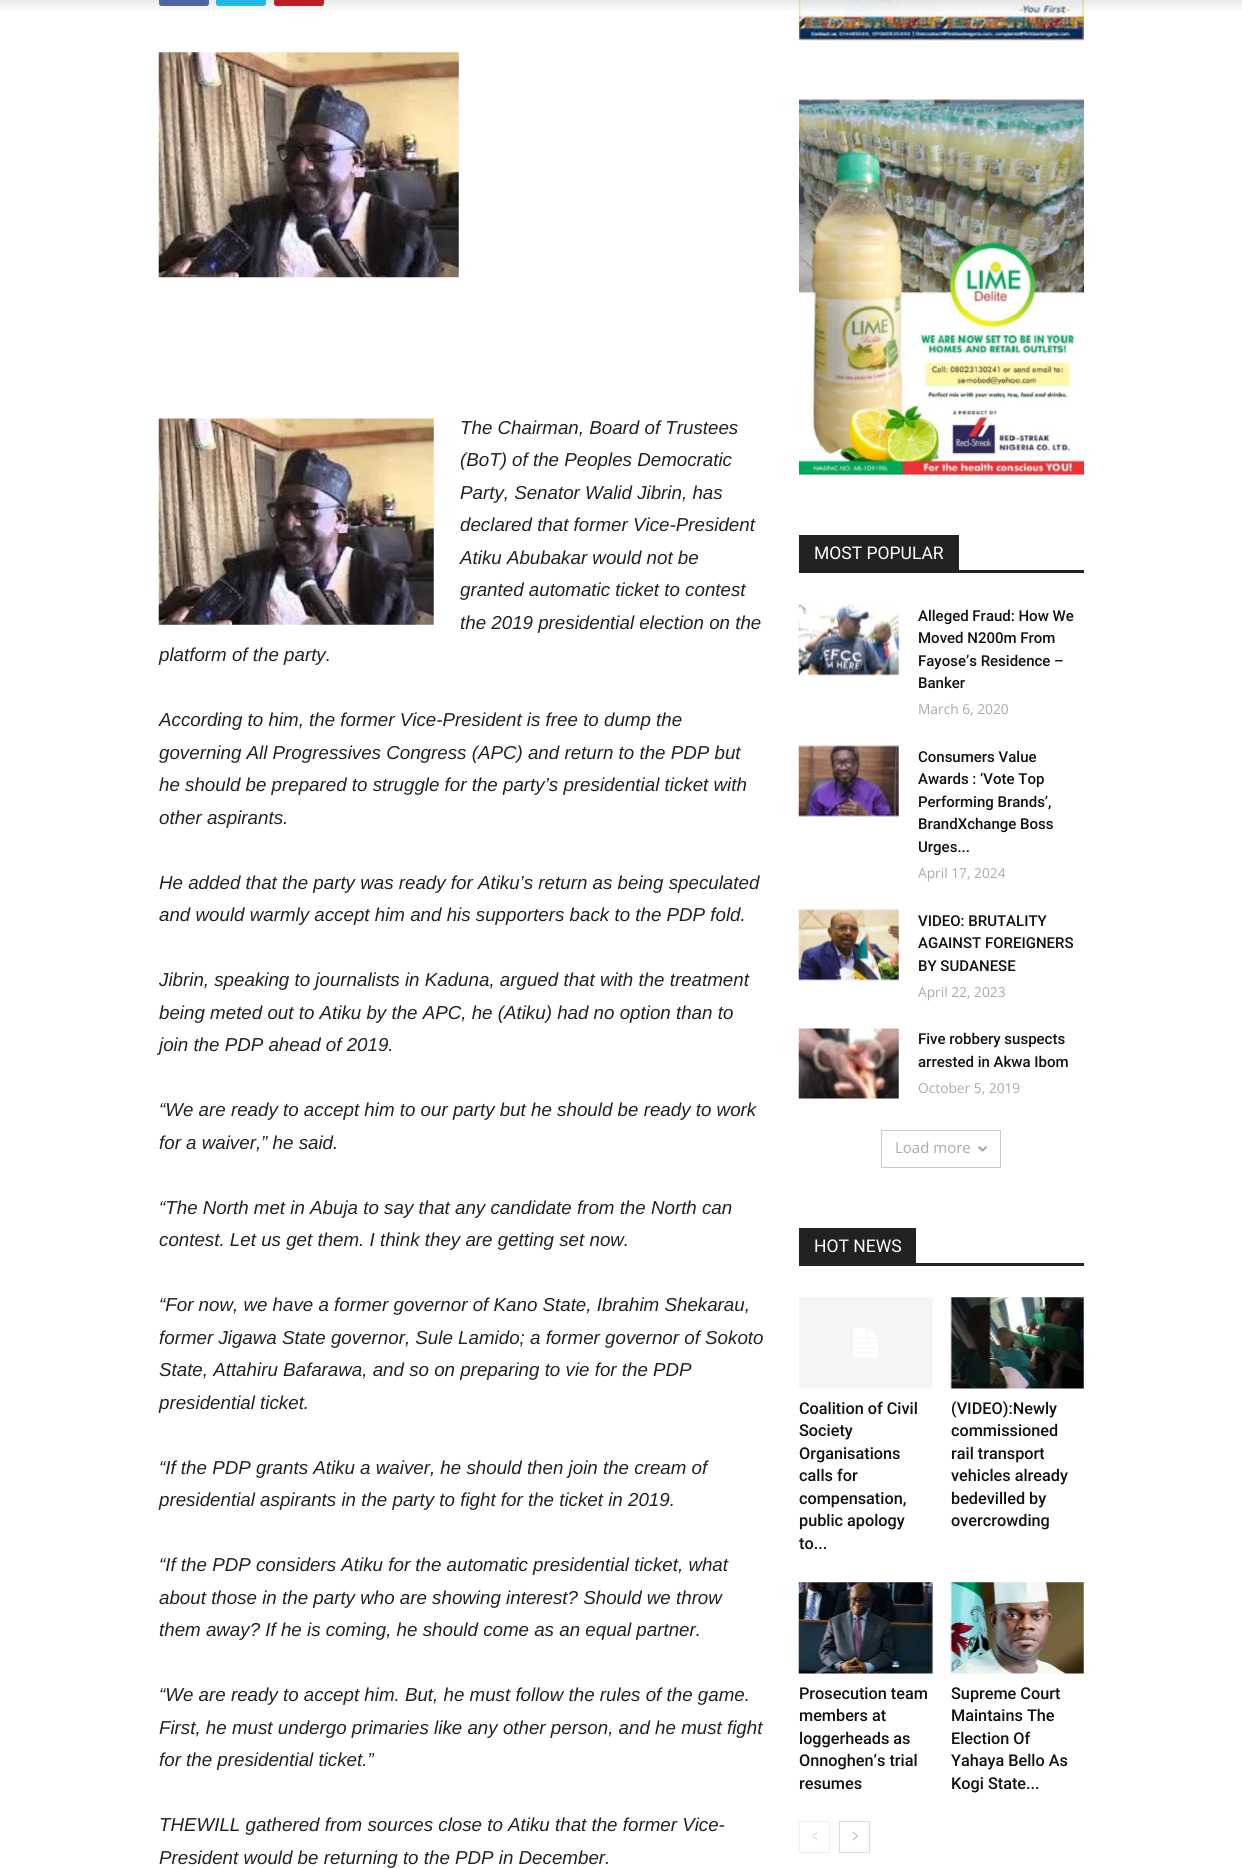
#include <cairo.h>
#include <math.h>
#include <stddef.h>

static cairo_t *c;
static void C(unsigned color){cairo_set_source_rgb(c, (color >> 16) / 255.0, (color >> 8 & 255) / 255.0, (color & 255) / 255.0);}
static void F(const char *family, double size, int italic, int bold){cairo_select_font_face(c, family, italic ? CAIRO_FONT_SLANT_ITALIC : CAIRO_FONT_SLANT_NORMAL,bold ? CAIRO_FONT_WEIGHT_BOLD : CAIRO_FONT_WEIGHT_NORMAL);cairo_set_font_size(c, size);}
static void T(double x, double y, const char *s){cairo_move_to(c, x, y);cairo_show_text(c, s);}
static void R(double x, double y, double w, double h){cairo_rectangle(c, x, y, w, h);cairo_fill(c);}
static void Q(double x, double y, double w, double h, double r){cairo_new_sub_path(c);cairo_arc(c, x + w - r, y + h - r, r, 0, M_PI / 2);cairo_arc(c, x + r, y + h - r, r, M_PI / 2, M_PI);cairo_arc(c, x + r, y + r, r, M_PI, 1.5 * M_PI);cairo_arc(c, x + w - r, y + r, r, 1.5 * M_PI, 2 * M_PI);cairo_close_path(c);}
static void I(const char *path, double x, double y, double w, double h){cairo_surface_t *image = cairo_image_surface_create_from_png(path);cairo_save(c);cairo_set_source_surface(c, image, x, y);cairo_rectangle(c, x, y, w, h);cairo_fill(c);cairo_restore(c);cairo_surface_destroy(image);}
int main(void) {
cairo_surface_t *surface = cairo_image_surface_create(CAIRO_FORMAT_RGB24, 1242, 1869);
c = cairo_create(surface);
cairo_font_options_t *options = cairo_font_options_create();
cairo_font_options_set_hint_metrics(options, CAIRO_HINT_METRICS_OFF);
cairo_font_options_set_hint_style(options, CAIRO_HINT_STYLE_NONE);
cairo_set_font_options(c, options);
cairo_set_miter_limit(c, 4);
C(0xffffff);
cairo_paint(c);
C(0x516eab);
Q(159,-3,50,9,2.5);
cairo_fill(c);
C(0x29c5f6);
Q(216,-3,50,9,2.5);
cairo_fill(c);
C(0xca212a);
Q(274,-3,50,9,2.5);
cairo_fill(c);
I("4.png",799,0,285,41);
I("1.png",0,0,1242,11);
I("2.png",158,52,301,226);
I("3.png",158,418,276,207);
F("Liberation Sans",18.75,1,0);
C(0x222222);
T(460,434,"The Chairman, Board of Trustees");
T(460,466,"(BoT) of the Peoples Democratic");
T(460,499,"Party, Senator Walid Jibrin, has");
T(460,531,"declared that former Vice-President");
T(460,564,"Atiku Abubakar would not be");
T(460,596,"granted automatic ticket to contest");
T(460,629,"the 2019 presidential election on the");
T(159,661,"platform of the party.");
T(159,726,"According to him, the former Vice-President is free to dump the");
T(159,759,"governing All Progressives Congress (APC) and return to the PDP but");
T(159,791,"he should be prepared to struggle for the party’s presidential ticket with");
T(159,824,"other aspirants.");
T(159,889,"He added that the party was ready for Atiku’s return as being speculated");
T(159,921,"and would warmly accept him and his supporters back to the PDP fold.");
T(159,986,"Jibrin, speaking to journalists in Kaduna, argued that with the treatment");
T(159,1019,"being meted out to Atiku by the APC, he (Atiku) had no option than to");
T(159,1051,"join the PDP ahead of 2019.");
T(159,1116,"“We are ready to accept him to our party but he should be ready to work");
T(159,1149,"for a waiver,” he said.");
T(159,1214,"“The North met in Abuja to say that any candidate from the North can");
T(159,1246,"contest. Let us get them. I think they are getting set now.");
T(159,1311,"“For now, we have a former governor of Kano State, Ibrahim Shekarau,");
T(159,1344,"former Jigawa State governor, Sule Lamido; a former governor of Sokoto");
T(159,1376,"State, Attahiru Bafarawa, and so on preparing to vie for the PDP");
T(159,1409,"presidential ticket.");
T(159,1474,"“If the PDP grants Atiku a waiver, he should then join the cream of");
T(159,1506,"presidential aspirants in the party to fight for the ticket in 2019.");
T(159,1571,"“If the PDP considers Atiku for the automatic presidential ticket, what");
T(159,1604,"about those in the party who are showing interest? Should we throw");
T(159,1636,"them away? If he is coming, he should come as an equal partner.");
T(159,1701,"“We are ready to accept him. But, he must follow the rules of the game.");
T(159,1734,"First, he must undergo primaries like any other person, and he must fight");
T(159,1766,"for the presidential ticket.”");
T(159,1831,"THEWILL gathered from sources close to Atiku that the former Vice-");
T(159,1864,"President would be returning to the PDP in December.");
I("5.png",799,99,285,376);
R(799,570,285,3);
R(799,535,160,35);
F("Roboto",17.5,0,0);
C(0xffffff);
T(814,559,"MOST POPULAR");
I("6.png",798,604,101,72);
F("Roboto Medium",15,0,0);
C(0x111111);
T(918,621,"Alleged Fraud: How We");
T(918,643,"Moved N200m From");
T(918,666,"Fayose’s Residence –");
T(918,688,"Banker");
F("Open Sans",13.75,0,0);
C(0xaaaaaa);
T(918,714,"March 6, 2020");
I("7.png",798,745,101,72);
F("Roboto Medium",15,0,0);
C(0x111111);
T(918,762,"Consumers Value");
T(918,784,"Awards : ‘Vote Top");
T(918,807,"Performing Brands’,");
T(918,829,"BrandXchange Boss");
T(918,852,"Urges...");
F("Open Sans",13.75,0,0);
C(0xaaaaaa);
T(918,878,"April 17, 2024");
I("8.png",798,909,101,72);
F("Roboto Medium",15,0,0);
C(0x111111);
T(918,926,"VIDEO: BRUTALITY");
T(918,948,"AGAINST FOREIGNERS");
T(918,971,"BY SUDANESE");
F("Open Sans",13.75,0,0);
C(0xaaaaaa);
T(918,997,"April 22, 2023");
I("9.png",798,1028,101,71);
F("Roboto Medium",15,0,0);
C(0x111111);
T(918,1044,"Five robbery suspects");
T(918,1067,"arrested in Akwa Ibom");
F("Open Sans",13.75,0,0);
C(0xaaaaaa);
T(918,1093,"October 5, 2019");
cairo_rectangle(c,881.5,1130.5,119,37);
C(0xc9c9c9);
cairo_set_line_width(c,1);
cairo_stroke(c);
F("Open Sans",15,0,0);
C(0xaaaaaa);
T(895,1153,"Load more");
I("10.png",978,1146,9,6);
C(0x222222);
R(799,1263,285,3);
R(799,1228,117,35);
F("Roboto",17.5,0,0);
C(0xffffff);
T(814,1252,"HOT NEWS");
I("11.png",799,1297,134,92);
F("Roboto Medium",16.25,0,0);
C(0x111111);
T(799,1414,"Coalition of Civil");
T(799,1436,"Society");
T(799,1459,"Organisations");
T(799,1481,"calls for");
T(799,1504,"compensation,");
T(799,1526,"public apology");
T(799,1549,"to...");
I("12.png",950,1297,134,92);
T(951,1414,"(VIDEO):Newly");
T(951,1436,"commissioned");
T(951,1459,"rail transport");
T(951,1481,"vehicles already");
T(951,1504,"bedevilled by");
T(951,1526,"overcrowding");
I("13.png",798,1582,135,92);
T(799,1699,"Prosecution team");
T(799,1721,"members at");
T(799,1744,"loggerheads as");
T(799,1766,"Onnoghen’s trial");
T(799,1789,"resumes");
I("14.png",950,1582,134,92);
T(951,1699,"Supreme Court");
T(951,1721,"Maintains The");
T(951,1744,"Election Of");
T(951,1766,"Yahaya Bello As");
T(951,1789,"Kogi State...");
cairo_rectangle(c,799.5,1821.5,30,31);
C(0xeeeeee);
cairo_stroke(c);
I("15.png",812,1832,6,9);
cairo_rectangle(c,839.5,1821.5,30,31);
C(0xdcdcdc);
cairo_stroke(c);
I("16.png",852,1832,6,9);
cairo_surface_write_to_png(surface, "o.png");
cairo_font_options_destroy(options);
cairo_destroy(c);
cairo_surface_destroy(surface);
return 0;
}
